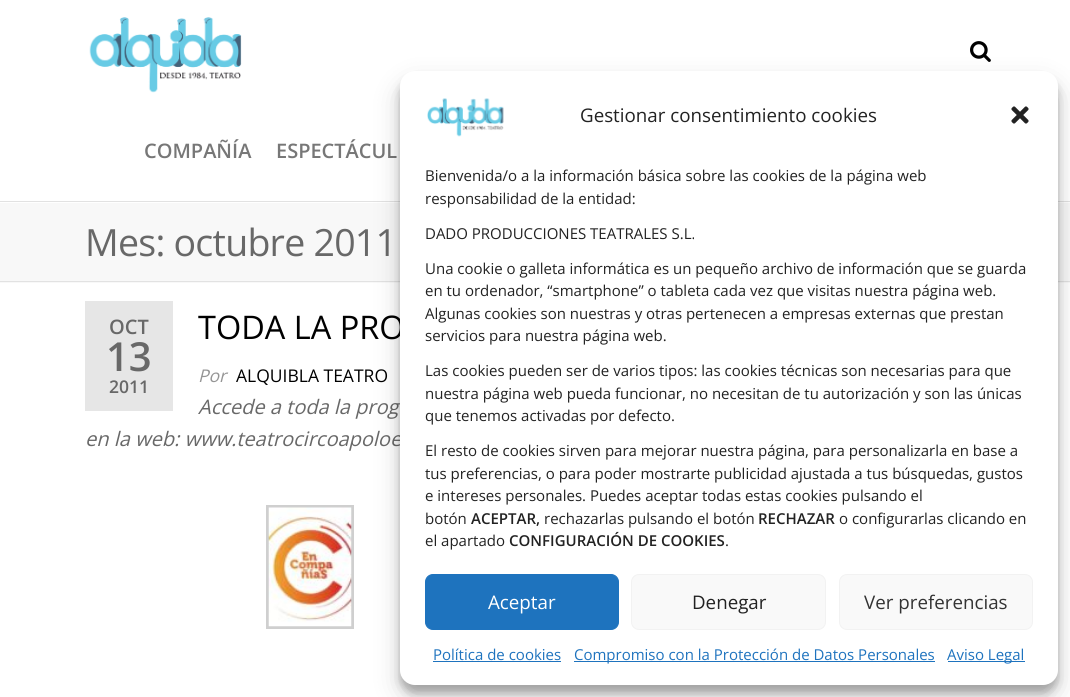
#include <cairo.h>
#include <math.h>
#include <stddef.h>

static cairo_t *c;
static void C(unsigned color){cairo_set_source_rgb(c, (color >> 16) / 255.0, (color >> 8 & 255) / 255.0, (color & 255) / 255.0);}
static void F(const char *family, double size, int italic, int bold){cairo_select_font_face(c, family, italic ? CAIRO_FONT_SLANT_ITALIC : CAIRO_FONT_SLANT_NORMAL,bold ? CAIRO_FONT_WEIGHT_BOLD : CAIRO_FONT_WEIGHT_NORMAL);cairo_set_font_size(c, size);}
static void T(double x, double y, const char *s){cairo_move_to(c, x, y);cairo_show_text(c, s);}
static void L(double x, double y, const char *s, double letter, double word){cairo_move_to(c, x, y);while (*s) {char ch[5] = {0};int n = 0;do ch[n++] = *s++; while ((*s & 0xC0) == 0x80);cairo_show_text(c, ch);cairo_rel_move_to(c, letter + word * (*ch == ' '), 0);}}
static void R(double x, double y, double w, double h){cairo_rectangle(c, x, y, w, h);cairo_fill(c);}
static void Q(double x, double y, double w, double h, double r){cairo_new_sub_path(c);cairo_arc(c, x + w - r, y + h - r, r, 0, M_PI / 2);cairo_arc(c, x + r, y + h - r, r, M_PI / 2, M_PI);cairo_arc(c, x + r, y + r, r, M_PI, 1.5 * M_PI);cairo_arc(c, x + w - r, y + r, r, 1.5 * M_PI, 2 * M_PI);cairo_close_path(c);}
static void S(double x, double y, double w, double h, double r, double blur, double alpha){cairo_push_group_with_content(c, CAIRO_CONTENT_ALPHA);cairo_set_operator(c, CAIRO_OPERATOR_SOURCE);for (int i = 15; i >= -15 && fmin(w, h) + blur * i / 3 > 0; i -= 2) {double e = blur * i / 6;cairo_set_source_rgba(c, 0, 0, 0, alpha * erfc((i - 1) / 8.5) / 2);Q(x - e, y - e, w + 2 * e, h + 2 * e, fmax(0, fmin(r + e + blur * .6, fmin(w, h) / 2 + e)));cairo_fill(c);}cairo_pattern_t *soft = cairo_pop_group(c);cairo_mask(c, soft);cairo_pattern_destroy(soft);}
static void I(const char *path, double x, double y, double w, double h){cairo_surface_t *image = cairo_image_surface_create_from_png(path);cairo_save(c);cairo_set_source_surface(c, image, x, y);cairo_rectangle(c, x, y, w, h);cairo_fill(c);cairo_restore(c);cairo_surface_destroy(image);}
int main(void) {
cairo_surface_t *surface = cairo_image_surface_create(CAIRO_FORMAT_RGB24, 1070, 697);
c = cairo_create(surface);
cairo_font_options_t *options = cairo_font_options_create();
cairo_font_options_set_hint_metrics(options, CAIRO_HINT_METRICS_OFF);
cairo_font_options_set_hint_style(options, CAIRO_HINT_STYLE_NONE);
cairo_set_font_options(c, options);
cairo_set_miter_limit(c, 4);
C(0xffffff);
cairo_paint(c);
C(0xe2e2e2);
R(0,201,1070,1);
I("1.png",89,17,153,76);
I("2.png",970,41,21,21);
F("Open Sans SemiBold",20,0,0);
C(0x777777);
T(144,158,"COMPAÑÍA");
T(276,158,"ESPECTÁCUL");
C(0xf8f8f8);
R(0,203,1070,80);
C(0xe2e2e2);
R(0,281,1070,1);
F("Open Sans",37.5,0,0);
C(0x686868);
L(85,256,"Mes: octubre 2011",-.75,0);
C(0xe6e6e6);
R(85,301,88,110);
F("Open Sans SemiBold",20,0,0);
C(0x686868);
T(109,334,"OCT");
F("Open Sans SemiBold",40,0,0);
T(106,371,"13");
F("Open Sans SemiBold",17.5,0,0);
T(109,393,"2011");
F("Open Sans",32.5,0,0);
C(0x000000);
T(198,339,"TODA LA PRO");
F("Open Sans",17.5,1,0);
C(0x959595);
T(198,382,"Por");
F("Open Sans",17.5,0,0);
C(0x000000);
T(236,382,"ALQUIBLA TEATRO");
F("Open Sans",20,1,0);
C(0x686868);
T(198,414,"Accede a toda la prog");
T(85,446,"en la web: www.teatrocircoapoloe");
cairo_rectangle(c,267.5,506.5,85,121);
C(0xcfcfcf);
cairo_set_line_width(c,3);
cairo_stroke(c);
I("3.png",268,507,84,120);
C(0x000000);
S(400,79,658,614,15,4,.23);
S(400,84,658,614,15,12.5,.19);
C(0xffffff);
Q(400,71,658,614,15);
cairo_fill(c);
I("4.png",427,98,77,39);
F("Open Sans",18.75,0,0);
C(0x222222);
T(580,122,"Gestionar consentimiento cookies");
I("5.png",1011,106,18,18);
F("Open Sans",15,0,0);
T(425,181,"Bienvenida/o a la información básica sobre las cookies de la página web");
T(425,204,"responsabilidad de la entidad:");
T(425,239,"DADO PRODUCCIONES TEATRALES S.L.");
T(425,274,"Una cookie o galleta informática es un pequeño archivo de información que se guarda");
T(425,296,"en tu ordenador, “smartphone” o tableta cada vez que visitas nuestra página web.");
T(425,319,"Algunas cookies son nuestras y otras pertenecen a empresas externas que prestan");
T(425,341,"servicios para nuestra página web.");
T(425,376,"Las cookies pueden ser de varios tipos: las cookies técnicas son necesarias para que");
T(425,399,"nuestra página web pueda funcionar, no necesitan de tu autorización y son las únicas");
T(425,421,"que tenemos activadas por defecto.");
T(425,456,"El resto de cookies sirven para mejorar nuestra página, para personalizarla en base a");
T(425,479,"tus preferencias, o para poder mostrarte publicidad ajustada a tus búsquedas, gustos");
T(425,501,"e intereses personales. Puedes aceptar todas estas cookies pulsando el");
T(425,524,"botón");
F("Open Sans SemiBold",15,0,0);
T(471,524,"ACEPTAR,");
F("Open Sans",15,0,0);
T(544,524,"rechazarlas pulsando el botón");
F("Open Sans SemiBold",15,0,0);
T(758,524,"RECHAZAR");
F("Open Sans",15,0,0);
T(839,524,"o configurarlas clicando en");
T(425,546,"el apartado");
F("Open Sans SemiBold",15,0,0);
T(509,546,"CONFIGURACIÓN DE COOKIES");
F("Open Sans",15,0,0);
T(725,546,".");
C(0x1e73be);
Q(425.5,574.5,193,55,7.5);
cairo_fill_preserve(c);
cairo_set_line_width(c,1);
cairo_stroke(c);
F("Open Sans",18.75,0,0);
C(0xffffff);
T(488,609,"Aceptar");
C(0xf9f9f9);
Q(631.5,574.5,194,55,7.5);
cairo_fill_preserve(c);
C(0xf2f2f2);
cairo_stroke(c);
C(0x222222);
T(692,609,"Denegar");
C(0xf9f9f9);
Q(839.5,574.5,193,55,7.5);
cairo_fill_preserve(c);
C(0xf2f2f2);
cairo_stroke(c);
C(0x333333);
T(864,609,"Ver preferencias");
F("Open Sans",15,0,0);
C(0x1e73be);
T(433,660,"Política de cookies");
R(433,661,128,1);
R(574,661,361,1);
T(574,660,"Compromiso con la Protección de Datos Personales");
R(948,661,77,1);
T(947,660,"Aviso Legal");
cairo_surface_write_to_png(surface, "o.png");
cairo_font_options_destroy(options);
cairo_destroy(c);
cairo_surface_destroy(surface);
return 0;
}
